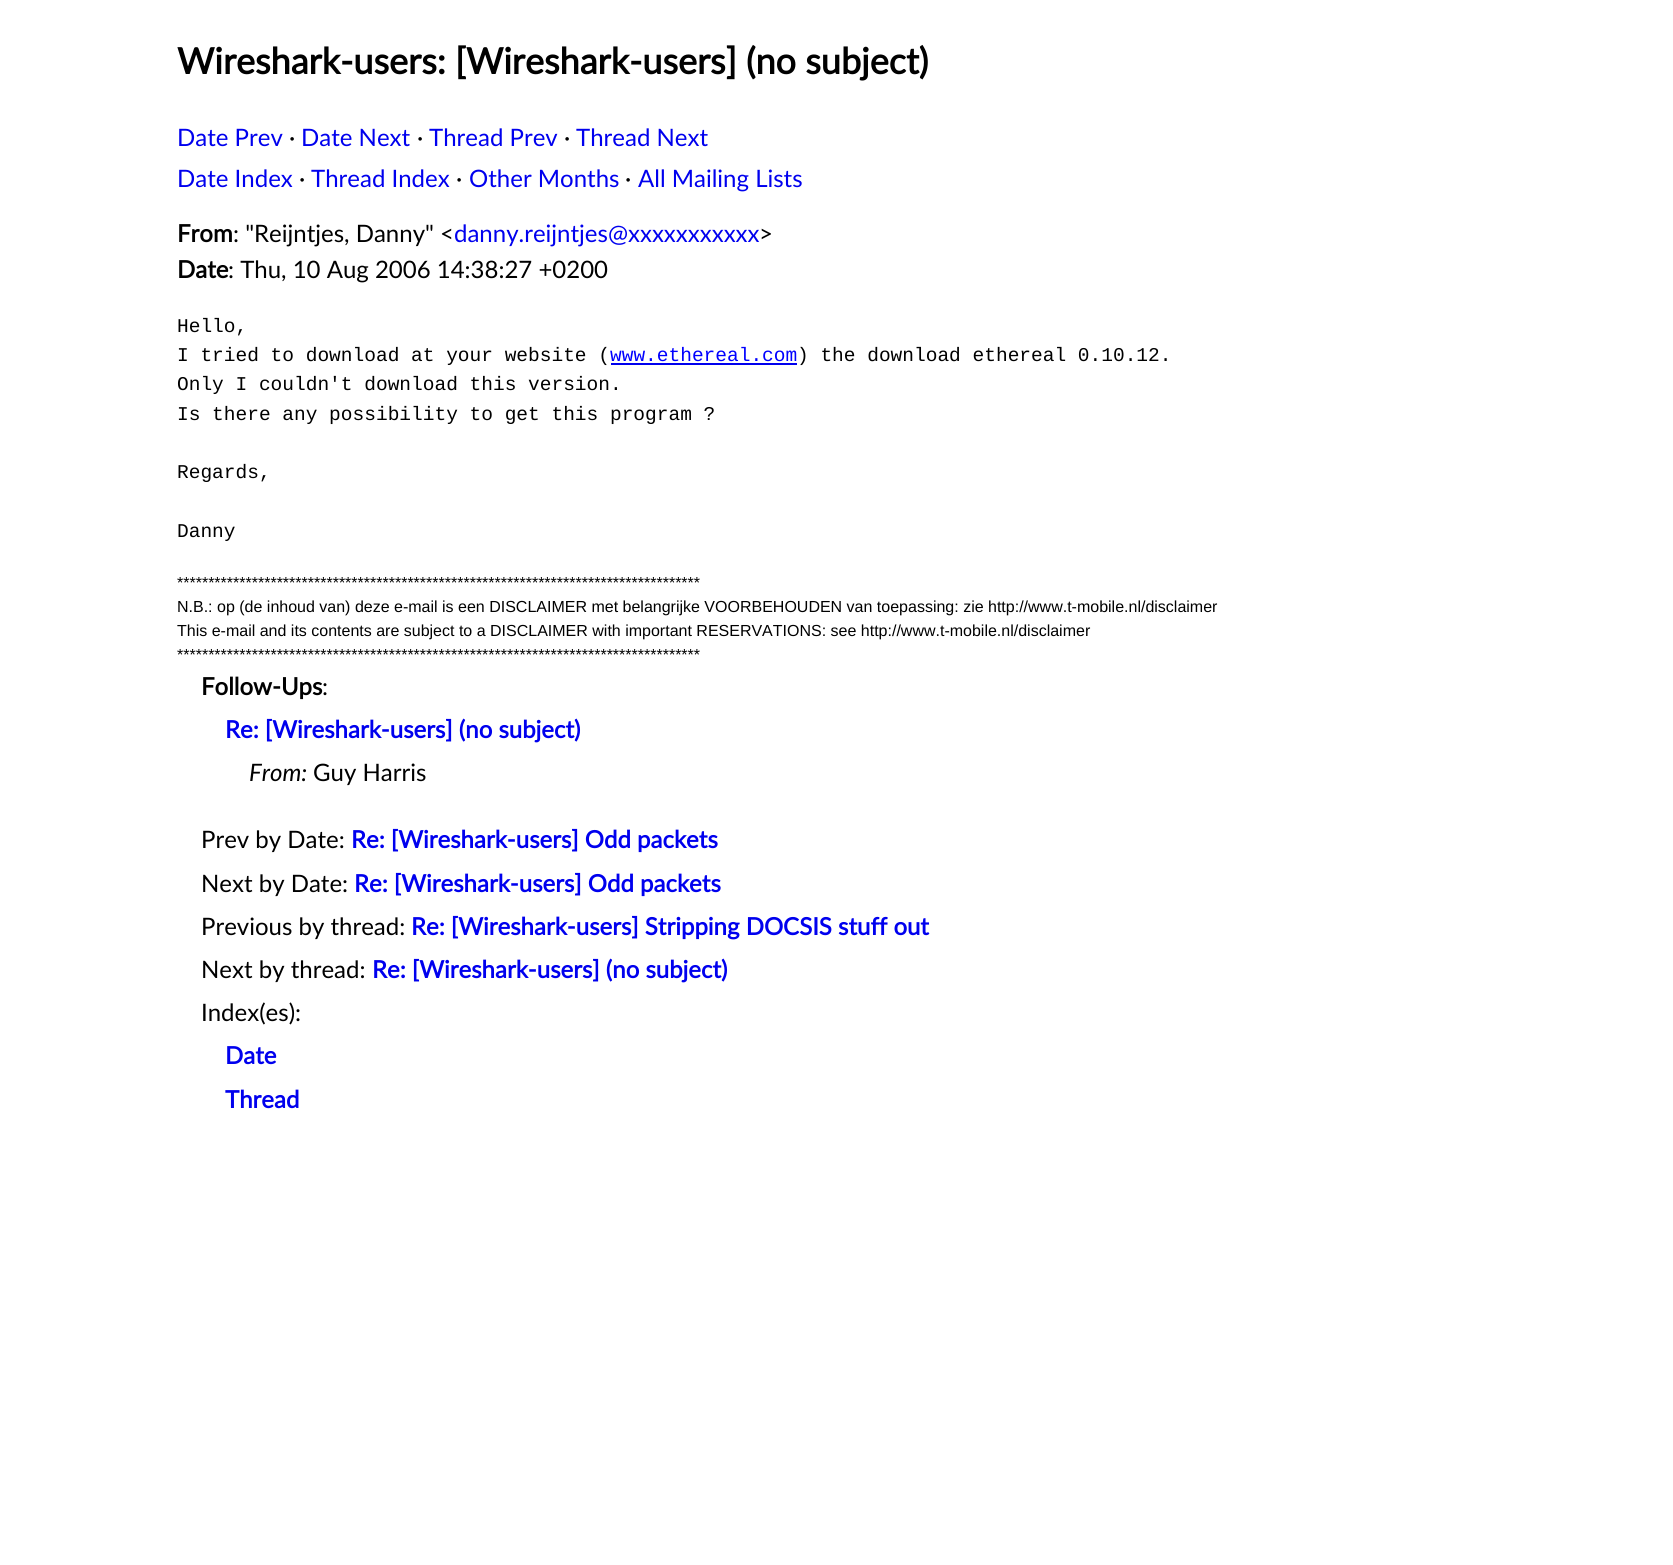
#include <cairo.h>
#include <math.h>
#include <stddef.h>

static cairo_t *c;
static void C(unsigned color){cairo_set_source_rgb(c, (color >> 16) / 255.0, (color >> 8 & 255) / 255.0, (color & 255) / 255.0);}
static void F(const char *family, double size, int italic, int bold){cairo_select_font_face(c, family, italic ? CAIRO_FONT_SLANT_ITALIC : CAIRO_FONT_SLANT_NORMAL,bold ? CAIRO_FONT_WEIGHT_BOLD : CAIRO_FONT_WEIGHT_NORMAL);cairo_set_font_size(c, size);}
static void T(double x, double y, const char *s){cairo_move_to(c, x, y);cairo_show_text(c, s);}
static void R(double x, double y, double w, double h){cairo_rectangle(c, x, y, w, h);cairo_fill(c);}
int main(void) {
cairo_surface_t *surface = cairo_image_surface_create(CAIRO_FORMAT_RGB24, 1673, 1565);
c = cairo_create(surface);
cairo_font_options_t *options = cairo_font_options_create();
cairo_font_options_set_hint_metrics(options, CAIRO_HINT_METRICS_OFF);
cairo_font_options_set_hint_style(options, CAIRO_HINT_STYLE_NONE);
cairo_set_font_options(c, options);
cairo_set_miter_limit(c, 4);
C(0xffffff);
cairo_paint(c);
F("Lato",36,0,1);
C(0x000000);
T(177,74,"Wireshark-users: [Wireshark-users] (no subject)");
F("Lato",24,0,0);
C(0x0000ee);
T(177,146,"Date Prev");
C(0x000000);
T(289,146,"·");
C(0x0000ee);
T(301,146,"Date Next");
C(0x000000);
T(417,146,"·");
C(0x0000ee);
T(429,146,"Thread Prev");
C(0x000000);
T(564,146,"·");
C(0x0000ee);
T(576,146,"Thread Next");
T(177,187,"Date Index");
C(0x000000);
T(299,187,"·");
C(0x0000ee);
T(311,187,"Thread Index");
C(0x000000);
T(456,187,"·");
C(0x0000ee);
T(469,187,"Other Months");
C(0x000000);
T(625,187,"·");
C(0x0000ee);
T(638,187,"All Mailing Lists");
F("Lato",24,0,1);
C(0x000000);
T(177,242,"From");
F("Lato",24,0,0);
T(233,242,": \"Reijntjes, Danny\" <");
C(0x0000ee);
T(454,242,"danny.reijntjes@xxxxxxxxxxx");
C(0x000000);
T(759,242,">");
F("Lato",24,0,1);
T(177,278,"Date");
F("Lato",24,0,0);
T(228,278,": Thu, 10 Aug 2006 14:38:27 +0200");
F("Liberation Mono",19.5,0,0);
T(177,332,"Hello,");
T(177,361,"I tried to download at your website (");
C(0x0000ff);
T(610,361,"www.ethereal.com");
C(0x0000ee);
R(611,363,186,2);
C(0x000000);
T(797,361,") the download ethereal 0.10.12.");
T(177,390,"Only I couldn't download this version.");
T(177,420,"Is there any possibility to get this program ?");
T(177,478,"Regards,");
T(177,537,"Danny");
F("Liberation Sans",16,0,0);
T(177,588,"************************************************************************************");
T(177,612,"N.B.: op (de inhoud van) deze e-mail is een DISCLAIMER met belangrijke VOORBEHOUDEN van toepassing: zie http://www.t-mobile.nl/disclaimer");
T(177,636,"This e-mail and its contents are subject to a DISCLAIMER with important RESERVATIONS: see http://www.t-mobile.nl/disclaimer");
T(177,660,"************************************************************************************");
F("Lato",24,0,1);
T(201,695,"Follow-Ups");
F("Lato",24,0,0);
T(322,695,":");
F("Lato",24,0,1);
C(0x0000ee);
T(225,738,"Re: [Wireshark-users] (no subject)");
F("Lato",24,1,0);
C(0x000000);
T(249,781,"From:");
F("Lato",24,0,0);
T(313,781,"Guy Harris");
T(201,848,"Prev by Date:");
F("Lato",24,0,1);
C(0x0000ee);
T(351,848,"Re: [Wireshark-users] Odd packets");
F("Lato",24,0,0);
C(0x000000);
T(201,892,"Next by Date:");
F("Lato",24,0,1);
C(0x0000ee);
T(354,892,"Re: [Wireshark-users] Odd packets");
F("Lato",24,0,0);
C(0x000000);
T(201,935,"Previous by thread:");
F("Lato",24,0,1);
C(0x0000ee);
T(411,935,"Re: [Wireshark-users] Stripping DOCSIS stuff out");
F("Lato",24,0,0);
C(0x000000);
T(201,978,"Next by thread:");
F("Lato",24,0,1);
C(0x0000ee);
T(372,978,"Re: [Wireshark-users] (no subject)");
F("Lato",24,0,0);
C(0x000000);
T(201,1021,"Index(es):");
F("Lato",24,0,1);
C(0x0000ee);
T(225,1064,"Date");
T(225,1108,"Thread");
cairo_surface_write_to_png(surface, "o.png");
cairo_font_options_destroy(options);
cairo_destroy(c);
cairo_surface_destroy(surface);
return 0;
}
